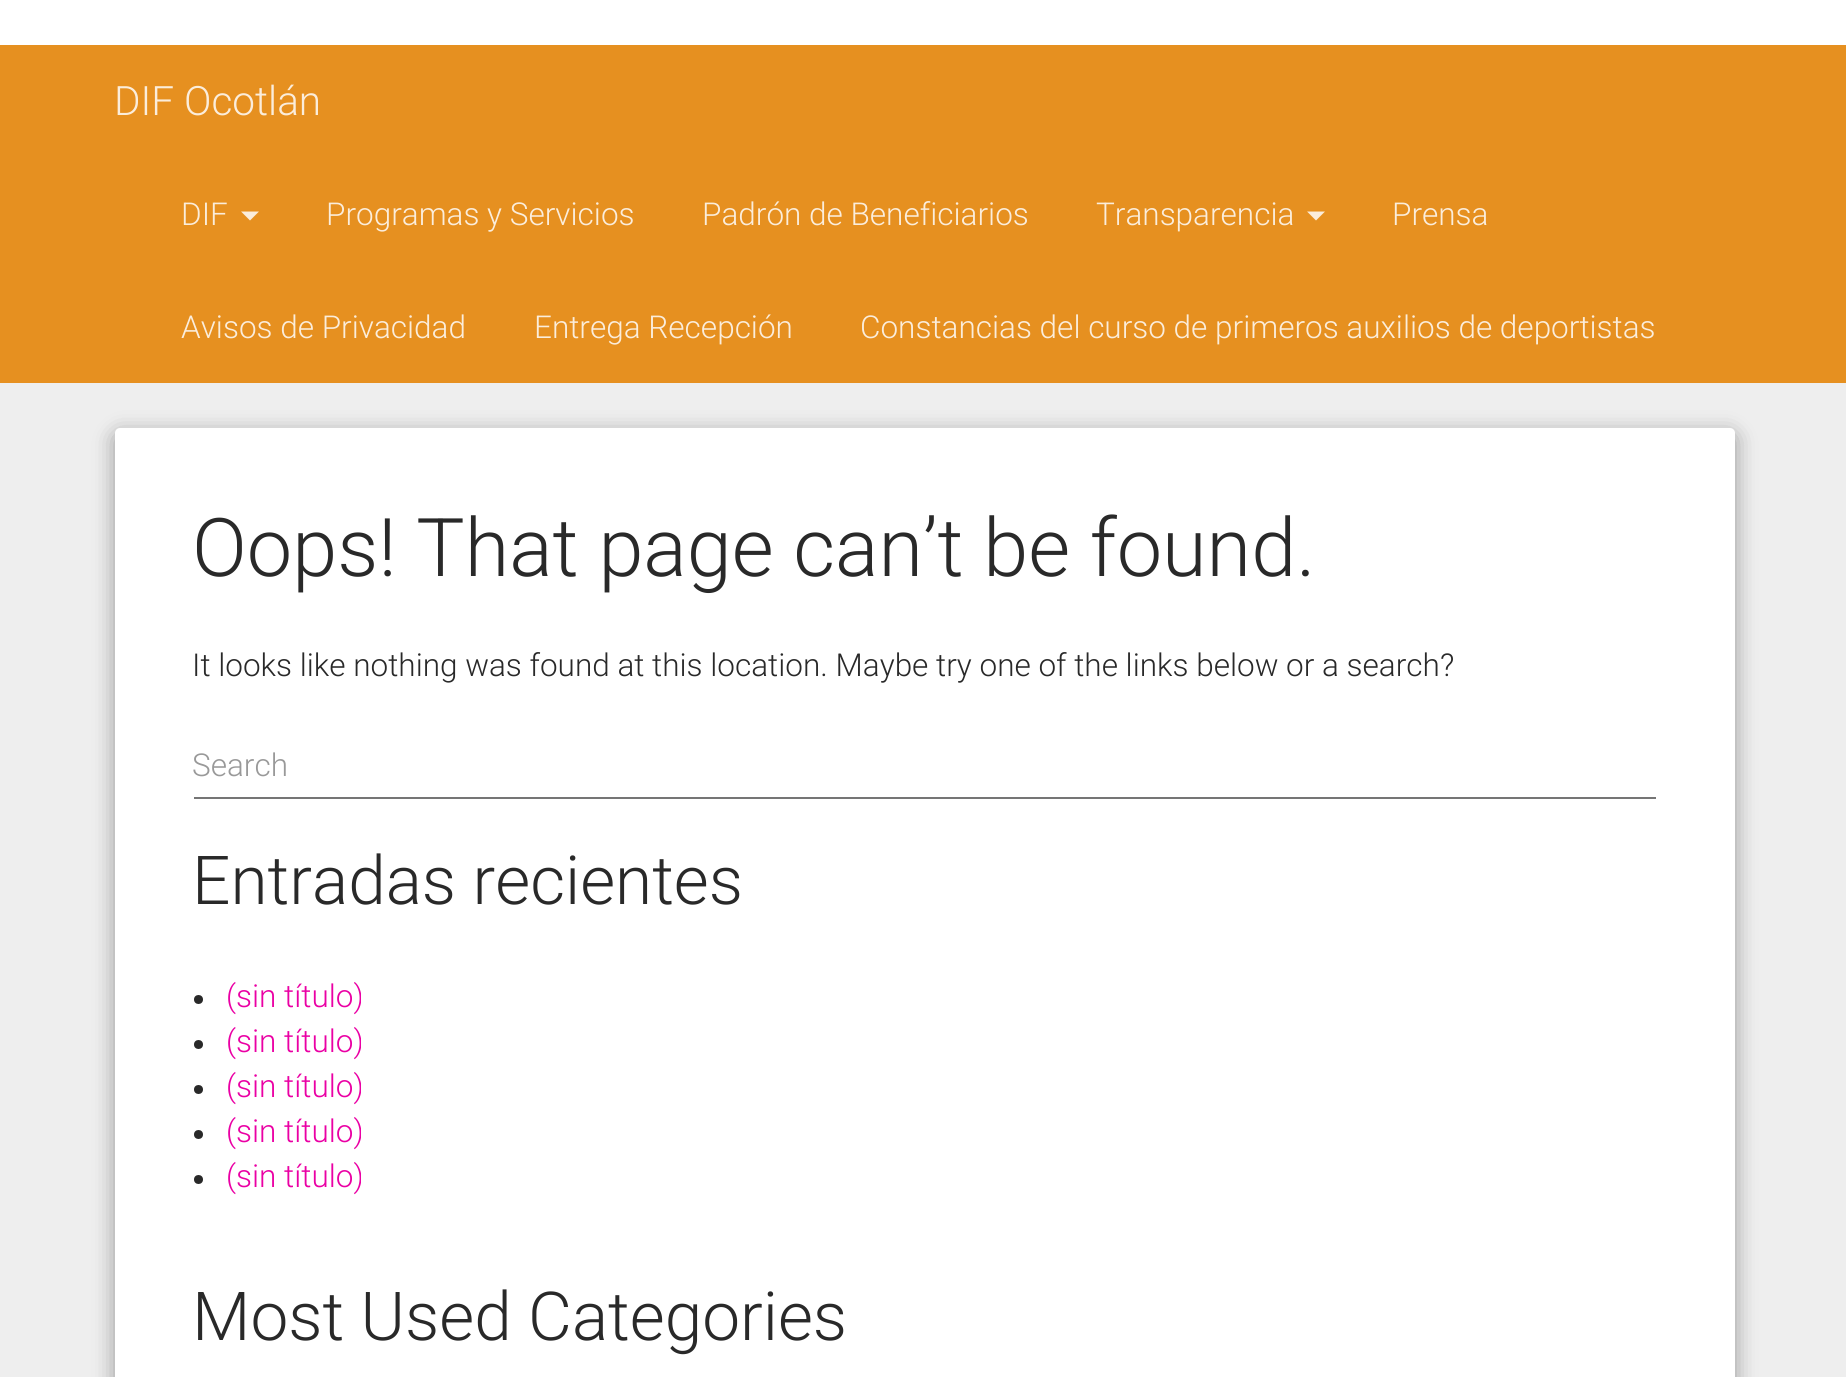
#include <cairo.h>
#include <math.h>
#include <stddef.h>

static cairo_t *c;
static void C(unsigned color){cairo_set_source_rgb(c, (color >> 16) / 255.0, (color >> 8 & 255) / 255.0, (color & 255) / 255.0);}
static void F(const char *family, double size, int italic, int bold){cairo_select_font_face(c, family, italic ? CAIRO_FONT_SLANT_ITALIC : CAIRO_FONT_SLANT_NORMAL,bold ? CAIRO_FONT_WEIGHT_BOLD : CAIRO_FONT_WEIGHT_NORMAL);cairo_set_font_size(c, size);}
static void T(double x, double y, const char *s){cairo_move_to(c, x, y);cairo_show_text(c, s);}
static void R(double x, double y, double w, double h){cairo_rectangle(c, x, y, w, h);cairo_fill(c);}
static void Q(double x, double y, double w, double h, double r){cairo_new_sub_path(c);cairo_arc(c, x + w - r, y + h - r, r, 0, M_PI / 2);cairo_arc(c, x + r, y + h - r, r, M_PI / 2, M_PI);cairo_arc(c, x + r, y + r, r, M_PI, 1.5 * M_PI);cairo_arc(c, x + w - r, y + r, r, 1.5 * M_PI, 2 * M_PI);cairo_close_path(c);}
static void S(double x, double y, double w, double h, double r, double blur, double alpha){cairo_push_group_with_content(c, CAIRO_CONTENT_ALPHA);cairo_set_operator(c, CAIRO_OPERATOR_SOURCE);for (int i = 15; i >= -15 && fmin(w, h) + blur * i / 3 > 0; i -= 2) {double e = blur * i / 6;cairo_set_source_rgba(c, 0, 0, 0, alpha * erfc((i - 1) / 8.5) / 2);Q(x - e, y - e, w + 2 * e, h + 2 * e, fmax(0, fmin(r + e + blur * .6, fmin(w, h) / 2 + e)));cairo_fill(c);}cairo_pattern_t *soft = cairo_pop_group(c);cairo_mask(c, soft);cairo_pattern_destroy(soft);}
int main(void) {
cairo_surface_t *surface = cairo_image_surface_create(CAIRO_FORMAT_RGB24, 1846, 1377);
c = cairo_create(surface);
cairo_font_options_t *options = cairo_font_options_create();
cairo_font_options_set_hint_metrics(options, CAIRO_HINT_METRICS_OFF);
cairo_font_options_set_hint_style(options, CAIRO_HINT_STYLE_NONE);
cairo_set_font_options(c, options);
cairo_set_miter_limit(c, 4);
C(0xeeeeee);
cairo_paint(c);
C(0xffffff);
R(0,0,1846,45);
C(0xe69020);
R(0,45,1846,338);
F("Roboto Light",40.5,0,0);
C(0xfbeddb);
T(114,115,"DIF Ocotlán");
F("Roboto Light",31.5,0,0);
T(181,225,"DIF");
cairo_new_path(c);
cairo_move_to(c,241,211.5);
cairo_line_to(c,259,211.5);
cairo_line_to(c,250,220.5);
cairo_close_path(c);
cairo_fill(c);
T(326,225,"Programas y Servicios");
T(702,225,"Padrón de Beneficiarios");
T(1096,225,"Transparencia");
cairo_new_path(c);
cairo_move_to(c,1307,211.5);
cairo_line_to(c,1325,211.5);
cairo_line_to(c,1316,220.5);
cairo_close_path(c);
cairo_fill(c);
T(1392,225,"Prensa");
T(181,338,"Avisos de Privacidad");
T(534,338,"Entrega Recepción");
T(860,338,"Constancias del curso de primeros auxilios de deportistas");
C(0x000000);
S(115,434,1620,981,5,11,.16);
S(115,434,1620,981,5,11,.23);
C(0xffffff);
Q(115,428,1620,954,5);
cairo_fill(c);
F("Roboto Light",81,0,0);
C(0x292929);
T(192,576,"Oops! That page can’t be found.");
F("Roboto Light",31.5,0,0);
T(192,676,"It looks like nothing was found at this location. Maybe try one of the links below or a search?");
C(0x757575);
R(194,797,1462,2);
C(0x999999);
T(192,776,"Search");
F("Roboto Light",67.5,0,0);
C(0x292929);
T(192,904,"Entradas recientes");
cairo_new_path(c);
cairo_arc(c,198.5,999.5,4.5,0,2 * M_PI);
cairo_fill(c);
F("Roboto Light",31.5,0,0);
C(0xea00a4);
T(226,1007,"(sin título)");
C(0x292929);
cairo_new_path(c);
cairo_arc(c,198.5,1044.5,4.5,0,2 * M_PI);
cairo_fill(c);
C(0xea00a4);
T(226,1052,"(sin título)");
C(0x292929);
cairo_new_path(c);
cairo_arc(c,198.5,1089.5,4.5,0,2 * M_PI);
cairo_fill(c);
C(0xea00a4);
T(226,1097,"(sin título)");
C(0x292929);
cairo_new_path(c);
cairo_arc(c,198.5,1134.5,4.5,0,2 * M_PI);
cairo_fill(c);
C(0xea00a4);
T(226,1142,"(sin título)");
C(0x292929);
cairo_new_path(c);
cairo_arc(c,198.5,1179.5,4.5,0,2 * M_PI);
cairo_fill(c);
C(0xea00a4);
T(226,1187,"(sin título)");
F("Roboto Light",67.5,0,0);
C(0x292929);
T(192,1340,"Most Used Categories");
cairo_surface_write_to_png(surface, "o.png");
cairo_font_options_destroy(options);
cairo_destroy(c);
cairo_surface_destroy(surface);
return 0;
}
